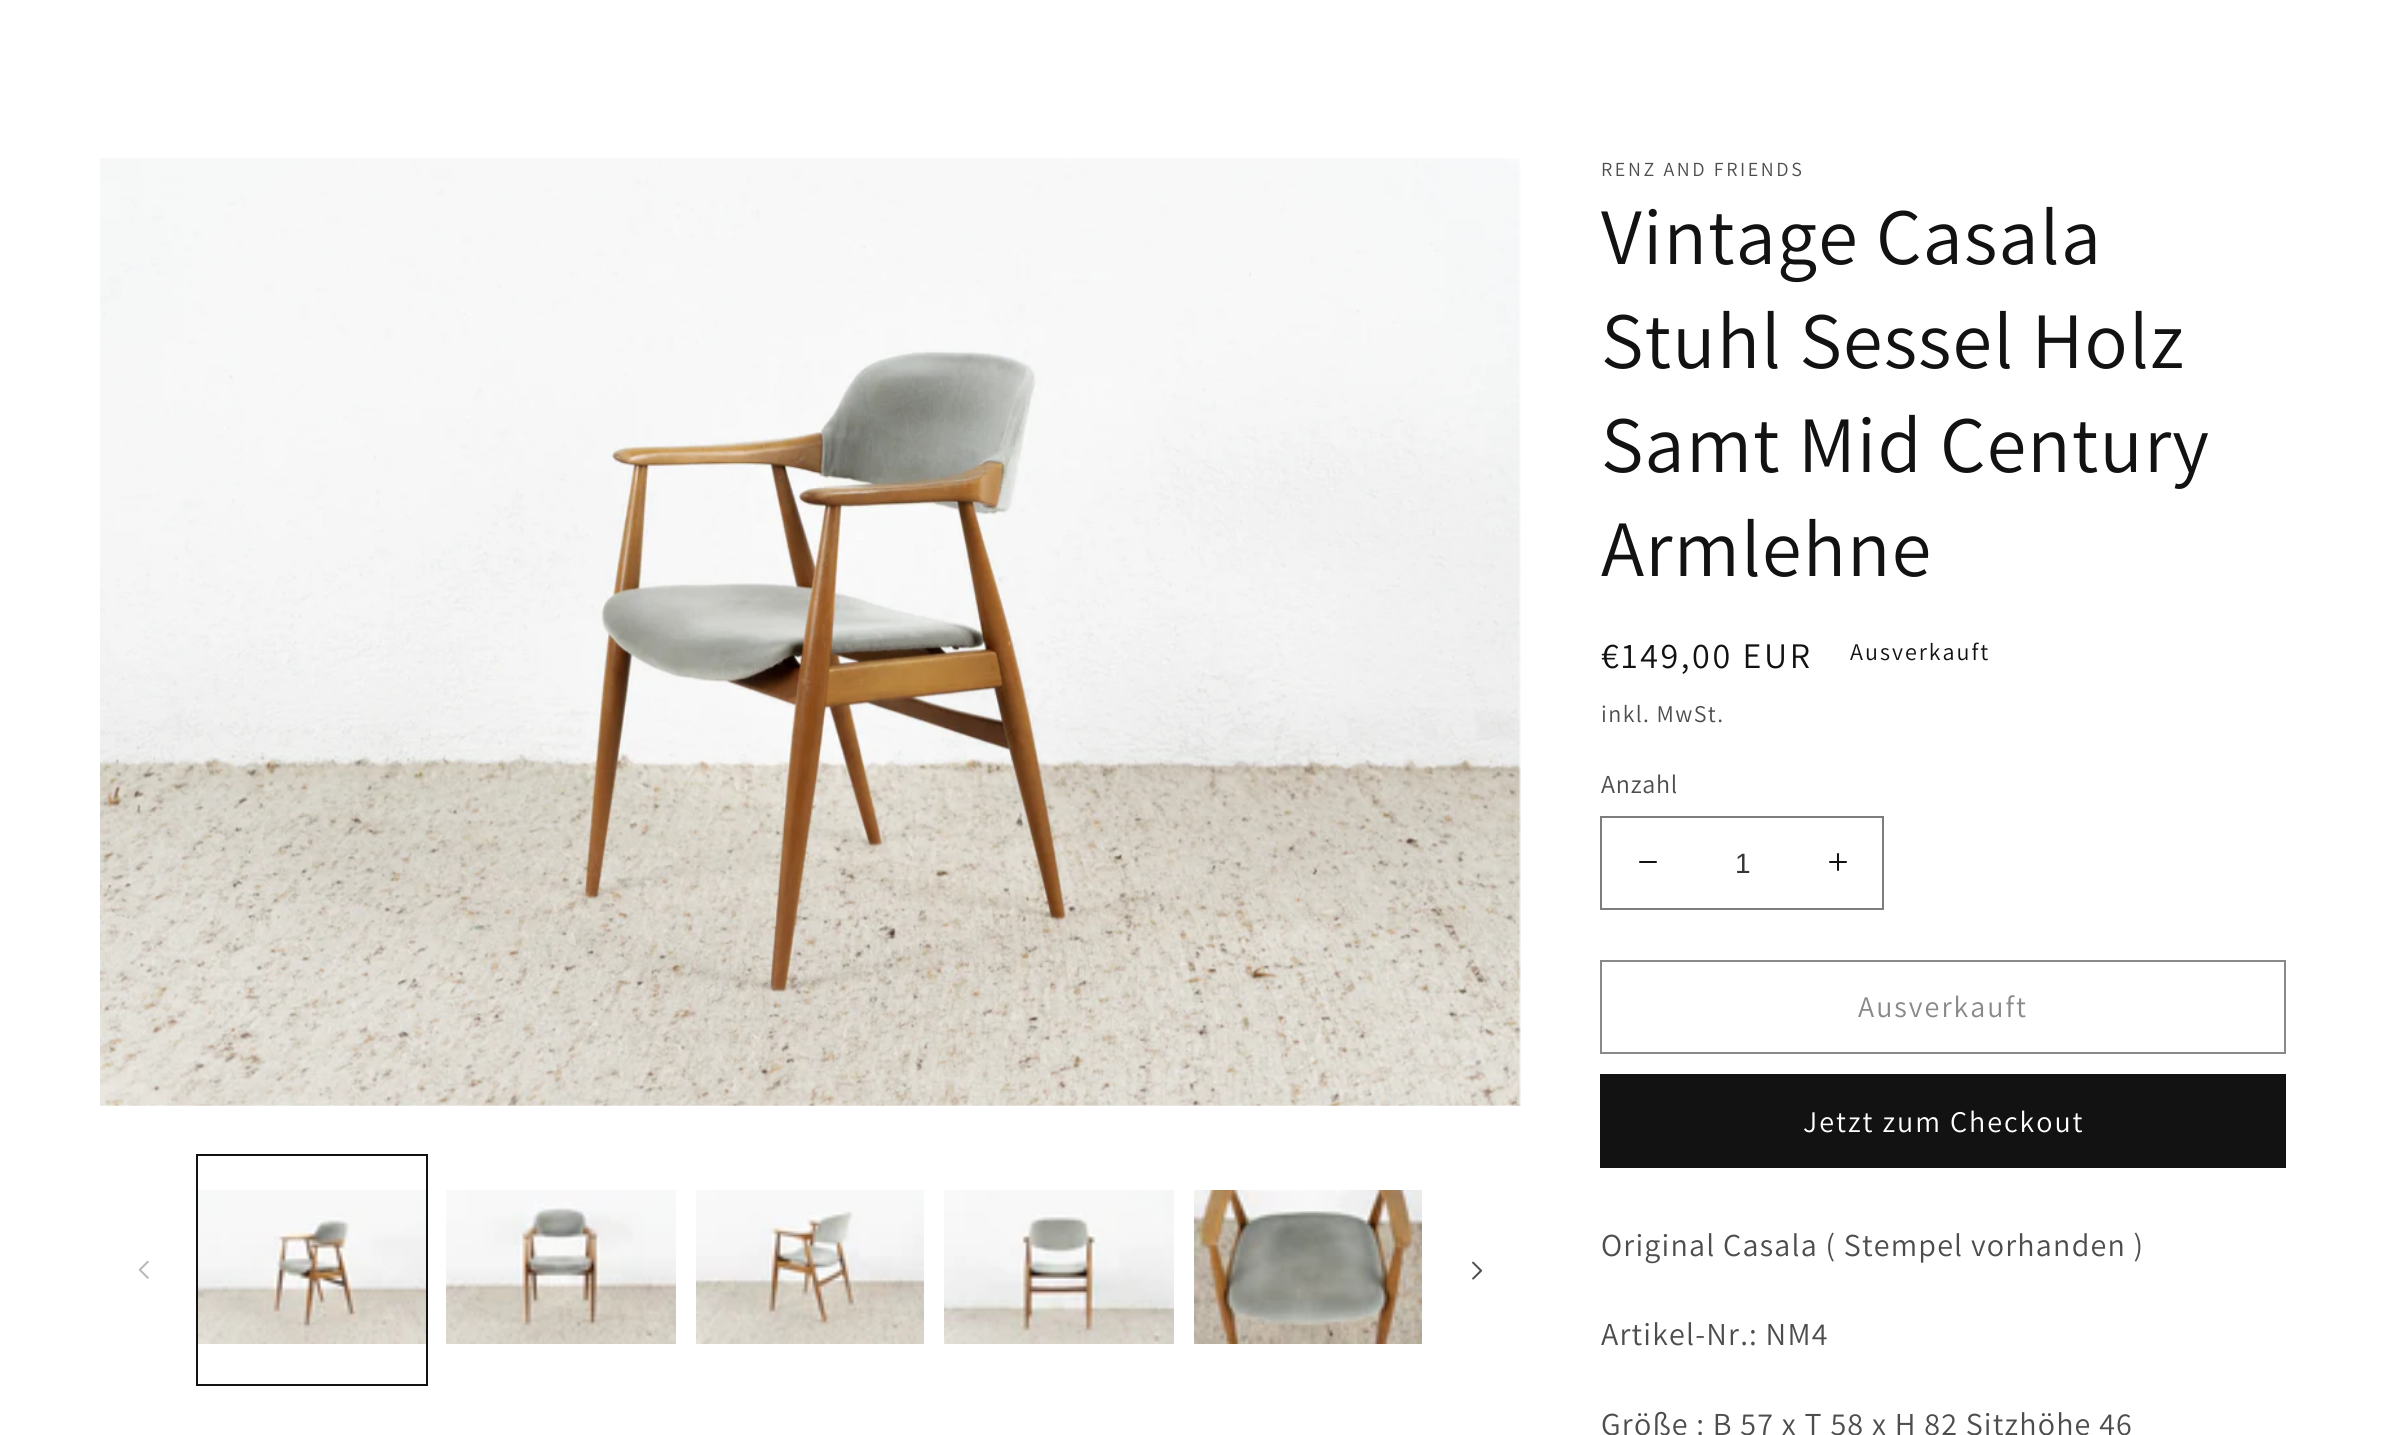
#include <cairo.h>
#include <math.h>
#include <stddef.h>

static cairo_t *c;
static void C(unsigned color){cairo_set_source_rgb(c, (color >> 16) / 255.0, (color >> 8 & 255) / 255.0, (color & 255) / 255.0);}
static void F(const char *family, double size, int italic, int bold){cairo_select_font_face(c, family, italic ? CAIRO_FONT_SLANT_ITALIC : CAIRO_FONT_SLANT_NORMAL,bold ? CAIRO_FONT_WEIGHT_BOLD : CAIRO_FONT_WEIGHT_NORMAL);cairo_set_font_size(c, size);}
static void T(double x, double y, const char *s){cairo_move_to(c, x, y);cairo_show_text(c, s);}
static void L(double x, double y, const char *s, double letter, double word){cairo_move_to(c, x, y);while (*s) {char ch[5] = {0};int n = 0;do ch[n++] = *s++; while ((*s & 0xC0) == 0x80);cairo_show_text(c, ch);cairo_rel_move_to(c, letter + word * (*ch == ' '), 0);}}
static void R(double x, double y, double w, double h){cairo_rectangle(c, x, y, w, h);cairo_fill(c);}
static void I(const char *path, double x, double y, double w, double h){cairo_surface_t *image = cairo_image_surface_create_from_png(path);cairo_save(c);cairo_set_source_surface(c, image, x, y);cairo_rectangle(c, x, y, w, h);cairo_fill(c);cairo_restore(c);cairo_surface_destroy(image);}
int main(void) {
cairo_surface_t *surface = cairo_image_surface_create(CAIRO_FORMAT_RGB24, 2385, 1435);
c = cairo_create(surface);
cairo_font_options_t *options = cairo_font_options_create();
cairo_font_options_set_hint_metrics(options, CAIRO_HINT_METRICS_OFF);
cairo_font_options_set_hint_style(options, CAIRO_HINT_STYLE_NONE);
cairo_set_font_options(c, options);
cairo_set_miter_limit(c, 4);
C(0xffffff);
cairo_paint(c);
I("1.png",100,158,1421,948);
I("2.png",138,1260,11,19);
cairo_rectangle(c,197,1155,230,230);
C(0x121212);
cairo_stroke(c);
I("3.png",198,1190,228,154);
I("4.png",446,1190,230,154);
I("5.png",696,1190,228,154);
I("6.png",944,1190,230,154);
I("7.png",1194,1190,228,154);
I("8.png",1472,1261,11,19);
F("Assistant",20,0,0);
C(0x4d4d4d);
L(1601,176,"RENZ AND FRIENDS",2.6,0);
F("Assistant",80,0,0);
C(0x121212);
L(1601,264,"Vintage Casala",1.2,0);
L(1601,368,"Stuhl Sessel Holz",1.2,0);
L(1601,472,"Samt Mid Century",1.2,0);
L(1601,576,"Armlehne",1.2,0);
F("Assistant",36,0,0);
L(1601,668,"€149,00 EUR",2.6,0);
F("Assistant",24,0,0);
L(1850,660,"Ausverkauft",2,0);
C(0x4d4d4d);
L(1601,722,"inkl. MwSt.",1.4,0);
F("Assistant",26,0,0);
L(1601,793,"Anzahl",.75,0);
I("9.png",1639,861,18,2);
I("10.png",1829,853,18,18);
cairo_rectangle(c,1601,817,282,92);
C(0x7d7d7d);
cairo_stroke(c);
F("Liberation Sans",28,0,0);
C(0x363636);
T(1735,873,"1");
cairo_rectangle(c,1601,961,684,92);
C(0x898989);
cairo_stroke(c);
F("Assistant",30,0,0);
L(1858,1017,"Ausverkauft",2,0);
C(0x121212);
R(1600,1074,686,94);
C(0xffffff);
L(1803,1132,"Jetzt zum Checkout",2,0);
F("Assistant",32,0,0);
C(0x4d4d4d);
L(1601,1256,"Original Casala ( Stempel vorhanden )",1.2,0);
L(1601,1345,"Artikel-Nr.: NM4",1.2,0);
L(1601,1435,"Größe : B 57 x T 58 x H 82 Sitzhöhe 46",1.2,0);
cairo_surface_write_to_png(surface, "o.png");
cairo_font_options_destroy(options);
cairo_destroy(c);
cairo_surface_destroy(surface);
return 0;
}
